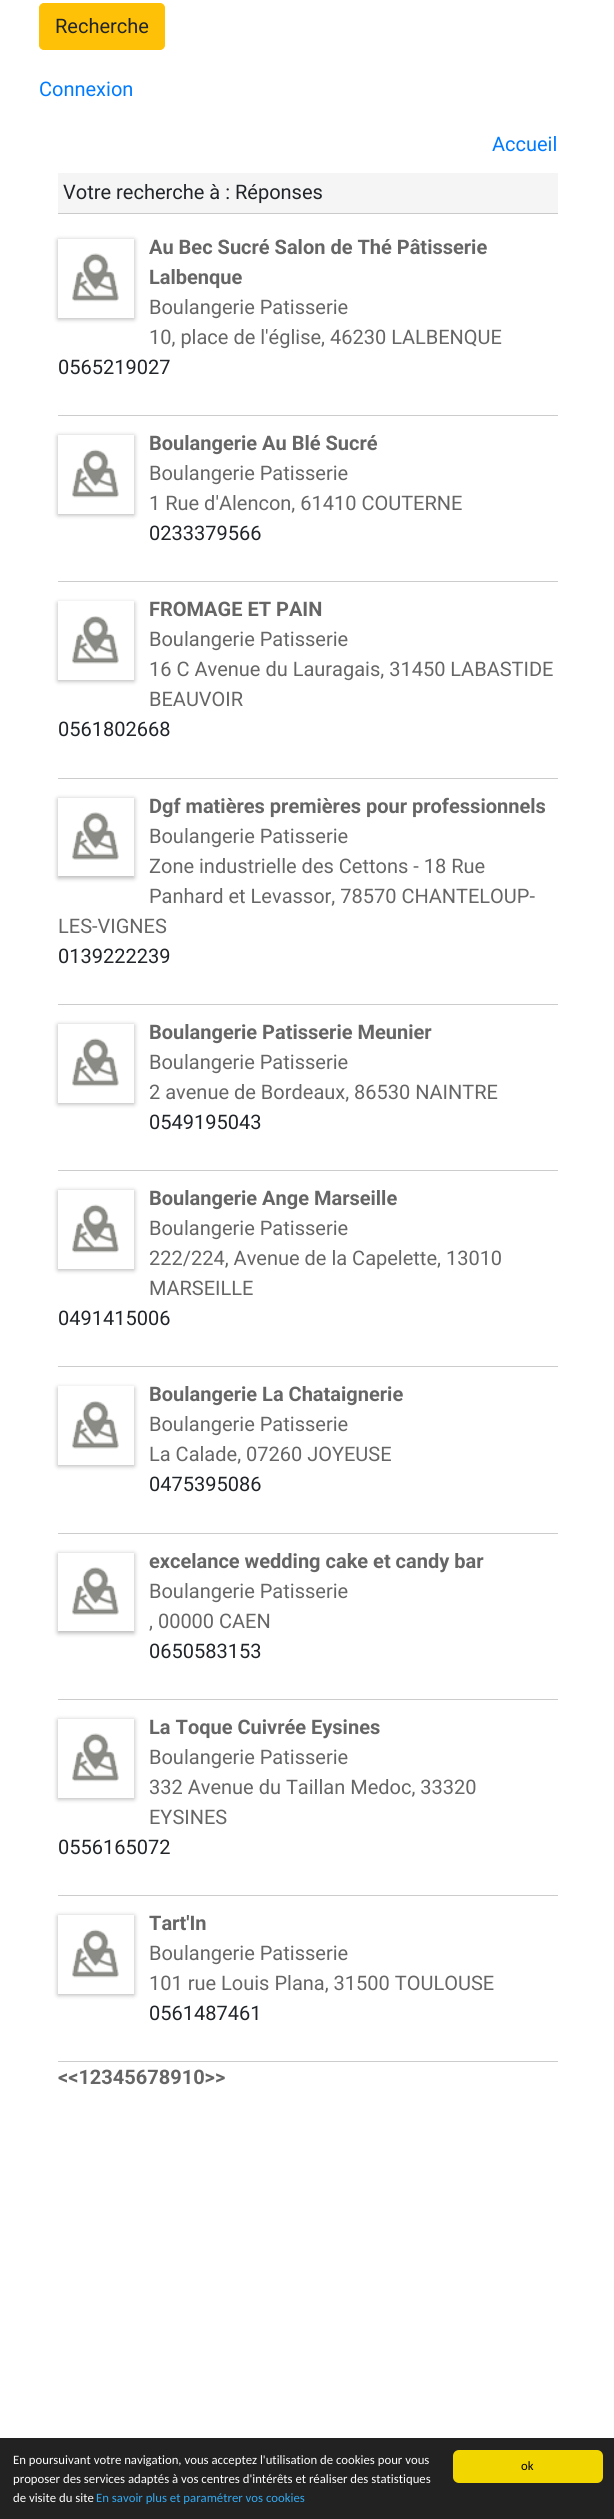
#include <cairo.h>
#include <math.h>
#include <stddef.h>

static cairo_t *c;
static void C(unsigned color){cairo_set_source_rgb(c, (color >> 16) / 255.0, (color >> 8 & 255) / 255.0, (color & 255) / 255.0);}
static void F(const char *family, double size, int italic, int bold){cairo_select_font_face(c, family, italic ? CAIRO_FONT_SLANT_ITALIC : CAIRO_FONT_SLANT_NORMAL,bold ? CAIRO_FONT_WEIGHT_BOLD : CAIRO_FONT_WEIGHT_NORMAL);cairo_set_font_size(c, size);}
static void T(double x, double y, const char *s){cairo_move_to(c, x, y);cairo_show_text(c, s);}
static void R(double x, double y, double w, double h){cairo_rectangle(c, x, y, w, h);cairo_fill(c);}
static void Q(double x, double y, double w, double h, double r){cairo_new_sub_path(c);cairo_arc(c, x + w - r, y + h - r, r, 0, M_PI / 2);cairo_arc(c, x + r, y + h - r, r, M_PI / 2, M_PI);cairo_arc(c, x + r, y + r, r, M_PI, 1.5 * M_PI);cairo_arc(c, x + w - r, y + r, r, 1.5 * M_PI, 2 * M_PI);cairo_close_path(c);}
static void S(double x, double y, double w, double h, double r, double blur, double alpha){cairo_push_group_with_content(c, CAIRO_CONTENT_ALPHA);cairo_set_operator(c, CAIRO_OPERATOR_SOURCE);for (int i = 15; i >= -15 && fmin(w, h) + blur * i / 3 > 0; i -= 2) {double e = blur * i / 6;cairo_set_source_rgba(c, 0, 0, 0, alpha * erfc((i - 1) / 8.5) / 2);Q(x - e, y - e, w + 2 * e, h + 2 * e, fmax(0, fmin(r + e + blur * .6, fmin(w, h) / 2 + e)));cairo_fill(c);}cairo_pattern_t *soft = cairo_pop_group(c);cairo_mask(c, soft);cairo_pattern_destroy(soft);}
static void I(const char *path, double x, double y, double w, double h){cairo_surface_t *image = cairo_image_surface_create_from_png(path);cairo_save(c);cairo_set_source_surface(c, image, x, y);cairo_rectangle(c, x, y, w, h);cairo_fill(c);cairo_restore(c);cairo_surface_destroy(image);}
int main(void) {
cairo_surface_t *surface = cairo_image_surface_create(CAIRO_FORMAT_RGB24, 614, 2519);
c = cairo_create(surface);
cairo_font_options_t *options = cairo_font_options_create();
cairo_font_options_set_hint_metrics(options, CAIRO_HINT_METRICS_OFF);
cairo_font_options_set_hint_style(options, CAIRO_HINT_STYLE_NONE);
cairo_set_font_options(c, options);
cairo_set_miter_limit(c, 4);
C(0xffffff);
cairo_paint(c);
C(0xffc107);
Q(39.5,3.5,125,46,4.5);
cairo_fill_preserve(c);
cairo_set_line_width(c,1);
cairo_stroke(c);
F("Roboto",20,0,0);
C(0x212529);
T(55,33,"Recherche");
C(0x007bff);
T(39,96,"Connexion");
T(492,151,"Accueil");
C(0xf5f5f5);
R(58,173,500,40);
C(0xcacaca);
R(58,213,500,1);
C(0x212529);
T(63,199,"Votre recherche à : Réponses");
C(0xcccccc);
R(58,415,500,1);
cairo_save(c);
cairo_set_fill_rule(c,CAIRO_FILL_RULE_EVEN_ODD);
cairo_new_path(c);
cairo_move_to(c,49,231);
cairo_line_to(c,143,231);
cairo_line_to(c,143,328);
cairo_line_to(c,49,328);
cairo_close_path(c);
cairo_move_to(c,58,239);
cairo_line_to(c,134,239);
cairo_line_to(c,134,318);
cairo_line_to(c,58,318);
cairo_close_path(c);
cairo_clip(c);
C(0x000000);
S(58,240,76,79,0,2.5,.3);
cairo_restore(c);
I("1.png",72,253,47,49);
F("Roboto",20,0,1);
C(0x666666);
T(149,254,"Au Bec Sucré Salon de Thé Pâtisserie");
T(149,284,"Lalbenque");
F("Roboto",20,0,0);
T(149,314,"Boulangerie Patisserie");
T(149,344,"10, place de l'église, 46230 LALBENQUE");
C(0x212529);
T(58,374,"0565219027");
C(0xcccccc);
R(58,581,500,1);
cairo_save(c);
cairo_set_fill_rule(c,CAIRO_FILL_RULE_EVEN_ODD);
cairo_new_path(c);
cairo_move_to(c,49,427);
cairo_line_to(c,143,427);
cairo_line_to(c,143,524);
cairo_line_to(c,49,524);
cairo_close_path(c);
cairo_move_to(c,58,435);
cairo_line_to(c,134,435);
cairo_line_to(c,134,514);
cairo_line_to(c,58,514);
cairo_close_path(c);
cairo_clip(c);
C(0x000000);
S(58,436,76,79,0,2.5,.3);
cairo_restore(c);
I("2.png",72,449,47,49);
F("Roboto",20,0,1);
C(0x666666);
T(149,450,"Boulangerie Au Blé Sucré");
F("Roboto",20,0,0);
T(149,480,"Boulangerie Patisserie");
T(149,510,"1 Rue d'Alencon, 61410 COUTERNE");
C(0x212529);
T(149,540,"0233379566");
C(0xcccccc);
R(58,778,500,1);
cairo_save(c);
cairo_set_fill_rule(c,CAIRO_FILL_RULE_EVEN_ODD);
cairo_new_path(c);
cairo_move_to(c,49,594);
cairo_line_to(c,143,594);
cairo_line_to(c,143,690);
cairo_line_to(c,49,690);
cairo_close_path(c);
cairo_move_to(c,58,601);
cairo_line_to(c,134,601);
cairo_line_to(c,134,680);
cairo_line_to(c,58,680);
cairo_close_path(c);
cairo_clip(c);
C(0x000000);
S(58,603,76,78,0,2.5,.3);
cairo_restore(c);
I("3.png",71,616,48,48);
F("Roboto",20,0,1);
C(0x666666);
T(149,616,"FROMAGE ET PAIN");
F("Roboto",20,0,0);
T(149,646,"Boulangerie Patisserie");
T(149,676,"16 C Avenue du Lauragais, 31450 LABASTIDE");
T(149,706,"BEAUVOIR");
C(0x212529);
T(58,736,"0561802668");
C(0xcccccc);
R(58,1004,500,1);
cairo_save(c);
cairo_set_fill_rule(c,CAIRO_FILL_RULE_EVEN_ODD);
cairo_new_path(c);
cairo_move_to(c,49,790);
cairo_line_to(c,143,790);
cairo_line_to(c,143,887);
cairo_line_to(c,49,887);
cairo_close_path(c);
cairo_move_to(c,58,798);
cairo_line_to(c,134,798);
cairo_line_to(c,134,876);
cairo_line_to(c,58,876);
cairo_close_path(c);
cairo_clip(c);
C(0x000000);
S(58,799,76,79,0,2.5,.3);
cairo_restore(c);
I("4.png",71,812,48,48);
F("Roboto",20,0,1);
C(0x666666);
T(149,813,"Dgf matières premières pour professionnels");
F("Roboto",20,0,0);
T(149,843,"Boulangerie Patisserie");
T(149,873,"Zone industrielle des Cettons - 18 Rue");
T(149,903,"Panhard et Levassor, 78570 CHANTELOUP-");
T(58,933,"LES-VIGNES");
C(0x212529);
T(58,963,"0139222239");
C(0xcccccc);
R(58,1170,500,1);
cairo_save(c);
cairo_set_fill_rule(c,CAIRO_FILL_RULE_EVEN_ODD);
cairo_new_path(c);
cairo_move_to(c,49,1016);
cairo_line_to(c,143,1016);
cairo_line_to(c,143,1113);
cairo_line_to(c,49,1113);
cairo_close_path(c);
cairo_move_to(c,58,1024);
cairo_line_to(c,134,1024);
cairo_line_to(c,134,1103);
cairo_line_to(c,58,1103);
cairo_close_path(c);
cairo_clip(c);
C(0x000000);
S(58,1025,76,79,0,2.5,.3);
cairo_restore(c);
I("1.png",72,1038,47,49);
F("Roboto",20,0,1);
C(0x666666);
T(149,1039,"Boulangerie Patisserie Meunier");
F("Roboto",20,0,0);
T(149,1069,"Boulangerie Patisserie");
T(149,1099,"2 avenue de Bordeaux, 86530 NAINTRE");
C(0x212529);
T(149,1129,"0549195043");
C(0xcccccc);
R(58,1366,500,1);
cairo_save(c);
cairo_set_fill_rule(c,CAIRO_FILL_RULE_EVEN_ODD);
cairo_new_path(c);
cairo_move_to(c,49,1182);
cairo_line_to(c,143,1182);
cairo_line_to(c,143,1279);
cairo_line_to(c,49,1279);
cairo_close_path(c);
cairo_move_to(c,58,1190);
cairo_line_to(c,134,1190);
cairo_line_to(c,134,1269);
cairo_line_to(c,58,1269);
cairo_close_path(c);
cairo_clip(c);
C(0x000000);
S(58,1191,76,79,0,2.5,.3);
cairo_restore(c);
I("2.png",72,1204,47,49);
F("Roboto",20,0,1);
C(0x666666);
T(149,1205,"Boulangerie Ange Marseille");
F("Roboto",20,0,0);
T(149,1235,"Boulangerie Patisserie");
T(149,1265,"222/224, Avenue de la Capelette, 13010");
T(149,1295,"MARSEILLE");
C(0x212529);
T(58,1325,"0491415006");
C(0xcccccc);
R(58,1533,500,1);
cairo_save(c);
cairo_set_fill_rule(c,CAIRO_FILL_RULE_EVEN_ODD);
cairo_new_path(c);
cairo_move_to(c,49,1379);
cairo_line_to(c,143,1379);
cairo_line_to(c,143,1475);
cairo_line_to(c,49,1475);
cairo_close_path(c);
cairo_move_to(c,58,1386);
cairo_line_to(c,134,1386);
cairo_line_to(c,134,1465);
cairo_line_to(c,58,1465);
cairo_close_path(c);
cairo_clip(c);
C(0x000000);
S(58,1388,76,78,0,2.5,.3);
cairo_restore(c);
I("5.png",71,1401,48,48);
F("Roboto",20,0,1);
C(0x666666);
T(149,1401,"Boulangerie La Chataignerie");
F("Roboto",20,0,0);
T(149,1431,"Boulangerie Patisserie");
T(149,1461,"La Calade, 07260 JOYEUSE");
C(0x212529);
T(149,1491,"0475395086");
C(0xcccccc);
R(58,1699,500,1);
cairo_save(c);
cairo_set_fill_rule(c,CAIRO_FILL_RULE_EVEN_ODD);
cairo_new_path(c);
cairo_move_to(c,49,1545);
cairo_line_to(c,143,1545);
cairo_line_to(c,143,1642);
cairo_line_to(c,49,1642);
cairo_close_path(c);
cairo_move_to(c,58,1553);
cairo_line_to(c,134,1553);
cairo_line_to(c,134,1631);
cairo_line_to(c,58,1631);
cairo_close_path(c);
cairo_clip(c);
C(0x000000);
S(58,1554,76,79,0,2.5,.3);
cairo_restore(c);
I("4.png",71,1567,48,48);
F("Roboto",20,0,1);
C(0x666666);
T(149,1568,"excelance wedding cake et candy bar");
F("Roboto",20,0,0);
T(149,1598,"Boulangerie Patisserie");
T(149,1628,", 00000 CAEN");
C(0x212529);
T(149,1658,"0650583153");
C(0xcccccc);
R(58,1895,500,1);
cairo_save(c);
cairo_set_fill_rule(c,CAIRO_FILL_RULE_EVEN_ODD);
cairo_new_path(c);
cairo_move_to(c,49,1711);
cairo_line_to(c,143,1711);
cairo_line_to(c,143,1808);
cairo_line_to(c,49,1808);
cairo_close_path(c);
cairo_move_to(c,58,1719);
cairo_line_to(c,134,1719);
cairo_line_to(c,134,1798);
cairo_line_to(c,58,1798);
cairo_close_path(c);
cairo_clip(c);
C(0x000000);
S(58,1720,76,79,0,2.5,.3);
cairo_restore(c);
I("1.png",72,1733,47,49);
F("Roboto",20,0,1);
C(0x666666);
T(149,1734,"La Toque Cuivrée Eysines");
F("Roboto",20,0,0);
T(149,1764,"Boulangerie Patisserie");
T(149,1794,"332 Avenue du Taillan Medoc, 33320");
T(149,1824,"EYSINES");
C(0x212529);
T(58,1854,"0556165072");
C(0xcccccc);
R(58,2061,500,1);
cairo_save(c);
cairo_set_fill_rule(c,CAIRO_FILL_RULE_EVEN_ODD);
cairo_new_path(c);
cairo_move_to(c,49,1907);
cairo_line_to(c,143,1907);
cairo_line_to(c,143,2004);
cairo_line_to(c,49,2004);
cairo_close_path(c);
cairo_move_to(c,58,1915);
cairo_line_to(c,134,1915);
cairo_line_to(c,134,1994);
cairo_line_to(c,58,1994);
cairo_close_path(c);
cairo_clip(c);
C(0x000000);
S(58,1916,76,79,0,2.5,.3);
cairo_restore(c);
I("2.png",72,1929,47,49);
F("Roboto",20,0,1);
C(0x666666);
T(149,1930,"Tart'In");
F("Roboto",20,0,0);
T(149,1960,"Boulangerie Patisserie");
T(149,1990,"101 rue Louis Plana, 31500 TOULOUSE");
C(0x212529);
T(149,2020,"0561487461");
F("Roboto",20,0,1);
C(0x666666);
T(58,2084,"<<12345678910>>");
C(0x222222);
R(0,2438,614,81);
F("Carlito",12.75,0,0);
C(0xffffff);
T(13,2464,"En poursuivant votre navigation, vous acceptez l'utilisation de cookies pour vous");
T(13,2483,"proposer des services adaptés à vos centres d'intérêts et réaliser des statistiques");
T(13,2502,"de visite du site");
C(0x31a8f0);
T(96,2502,"En savoir plus et paramétrer vos cookies");
C(0xf1d600);
Q(453,2450,150,33,6);
cairo_fill(c);
C(0x000000);
T(521,2470,"ok");
cairo_surface_write_to_png(surface, "o.png");
cairo_font_options_destroy(options);
cairo_destroy(c);
cairo_surface_destroy(surface);
return 0;
}
